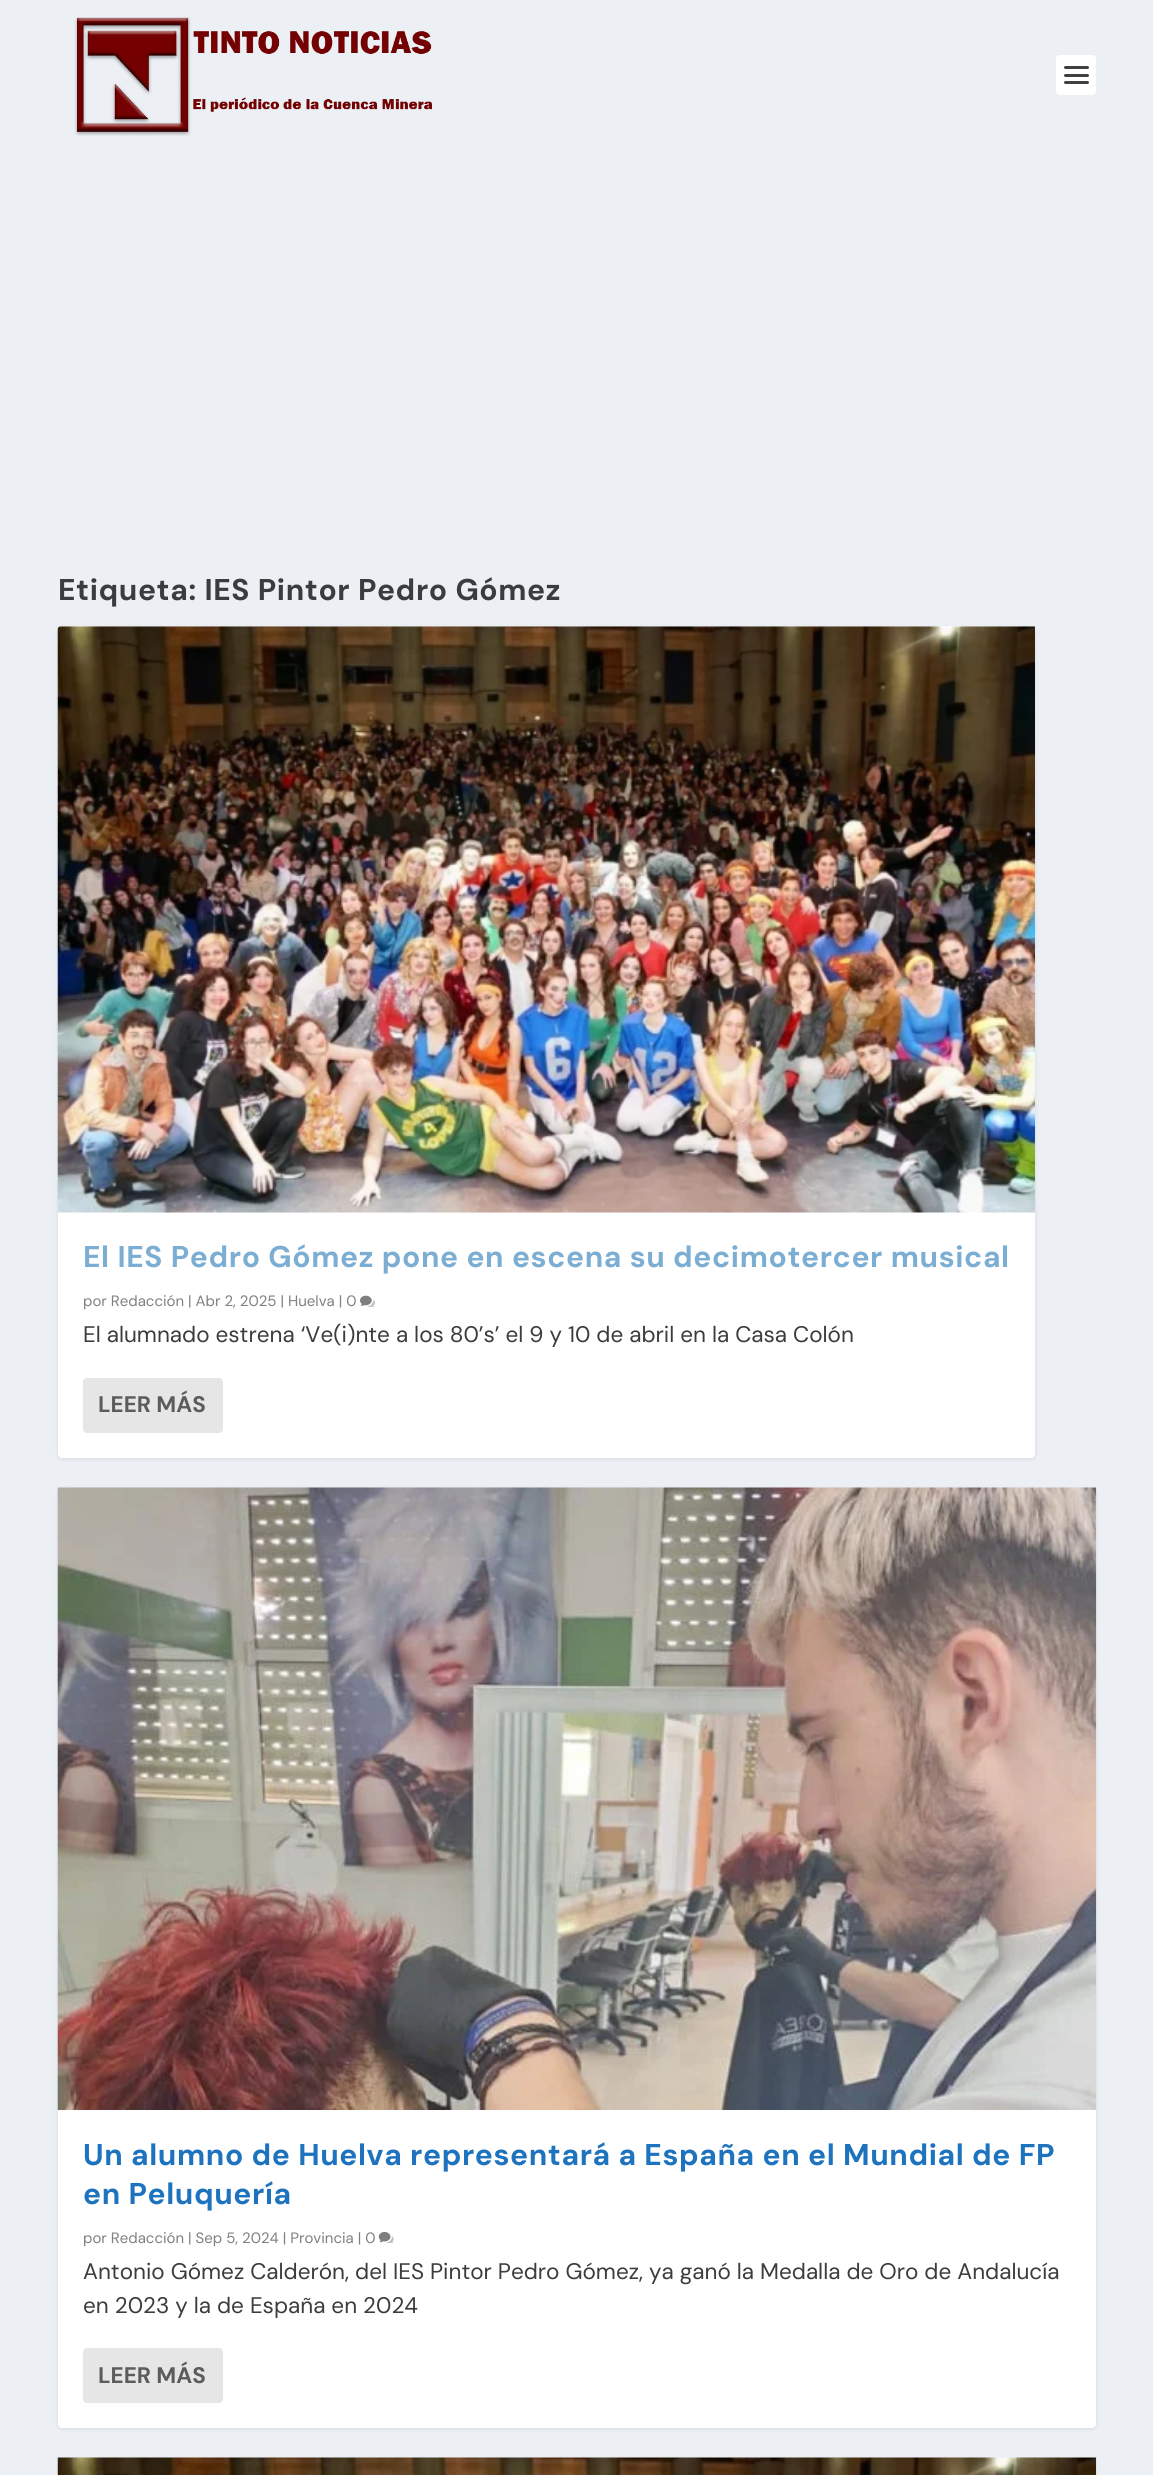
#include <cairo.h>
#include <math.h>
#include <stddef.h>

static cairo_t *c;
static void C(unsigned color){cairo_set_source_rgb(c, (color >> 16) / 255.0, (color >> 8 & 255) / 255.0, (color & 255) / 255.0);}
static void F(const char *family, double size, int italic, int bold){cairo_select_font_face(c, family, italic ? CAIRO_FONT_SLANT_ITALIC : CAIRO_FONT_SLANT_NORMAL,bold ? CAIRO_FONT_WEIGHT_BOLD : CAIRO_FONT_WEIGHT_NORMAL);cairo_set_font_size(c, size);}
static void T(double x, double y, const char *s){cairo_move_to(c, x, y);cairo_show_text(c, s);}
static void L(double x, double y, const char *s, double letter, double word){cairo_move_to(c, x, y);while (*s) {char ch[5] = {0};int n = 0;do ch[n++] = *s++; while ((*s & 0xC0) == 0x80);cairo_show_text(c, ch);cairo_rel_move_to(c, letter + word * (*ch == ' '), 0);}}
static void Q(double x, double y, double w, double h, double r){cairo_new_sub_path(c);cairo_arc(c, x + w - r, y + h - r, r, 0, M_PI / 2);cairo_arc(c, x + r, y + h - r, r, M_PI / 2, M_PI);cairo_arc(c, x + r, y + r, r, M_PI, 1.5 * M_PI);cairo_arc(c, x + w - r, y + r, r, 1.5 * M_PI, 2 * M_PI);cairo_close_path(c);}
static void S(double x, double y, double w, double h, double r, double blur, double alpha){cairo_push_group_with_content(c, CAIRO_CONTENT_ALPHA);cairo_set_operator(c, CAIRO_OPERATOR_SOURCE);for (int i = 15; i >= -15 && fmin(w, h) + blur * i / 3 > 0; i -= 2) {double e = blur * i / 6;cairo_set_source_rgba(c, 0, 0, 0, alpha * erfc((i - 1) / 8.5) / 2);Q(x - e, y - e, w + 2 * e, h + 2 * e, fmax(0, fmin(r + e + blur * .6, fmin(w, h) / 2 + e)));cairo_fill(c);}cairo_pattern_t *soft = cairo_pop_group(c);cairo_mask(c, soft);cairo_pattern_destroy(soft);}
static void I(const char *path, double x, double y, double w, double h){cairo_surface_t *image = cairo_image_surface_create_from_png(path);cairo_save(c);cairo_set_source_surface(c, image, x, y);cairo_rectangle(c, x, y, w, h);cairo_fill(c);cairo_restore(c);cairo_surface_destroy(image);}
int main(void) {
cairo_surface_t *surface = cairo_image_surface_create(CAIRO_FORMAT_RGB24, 1153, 2475);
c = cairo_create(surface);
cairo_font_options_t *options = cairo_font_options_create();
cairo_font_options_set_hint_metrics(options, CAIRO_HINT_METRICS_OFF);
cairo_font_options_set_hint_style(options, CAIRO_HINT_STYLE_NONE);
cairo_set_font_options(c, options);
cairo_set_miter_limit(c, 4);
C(0xecf0f5);
cairo_paint(c);
I("1.png",74,17,359,119);
C(0xffffff);
Q(1056,55,40,40,4);
cairo_fill(c);
C(0x404040);
Q(1064,66,25,3,1.5);
cairo_fill(c);
Q(1064,74,25,3,1.5);
cairo_fill(c);
Q(1064,81,25,3,1.5);
cairo_fill(c);
F("DM Sans",30,0,1);
C(0x3b3c3d);
L(58,600,"Etiqueta: IES Pintor Pedro Gómez",.62,0);
C(0x000000);
S(58,628,977,831,4,2,.1);
C(0xffffff);
Q(58,626,977,832,4);
cairo_fill(c);
I("2.png",57,626,978,587);
C(0x7caed3);
L(83,1267,"El IES Pedro Gómez pone en escena su decimotercer musical",.62,0);
F("DM Sans",15,0,0);
C(0x808080);
T(83,1306,"por Redacción | Abr 2, 2025 | Huelva | 0");
I("3.png",360,1295,15,12);
F("DM Sans",22.5,0,0);
C(0x3b3c3d);
T(83,1342,"El alumnado estrena ‘Ve(i)nte a los 80’s’ el 9 y 10 de abril en la Casa Colón");
C(0xe6e6e6);
Q(83,1378,140,55,4);
cairo_fill(c);
F("DM Sans",22.5,0,1);
C(0x5c5c5c);
T(98,1412,"LEER MÁS");
C(0x000000);
S(58,1489,1038,940,4,2,.1);
C(0xffffff);
Q(58,1488,1038,940,4);
cairo_fill(c);
I("4.png",57,1487,1040,623);
F("DM Sans",30,0,1);
C(0x1e73be);
L(83,2165,"Un alumno de Huelva representará a España en el Mundial de FP",.62,0);
L(83,2204,"en Peluquería",.62,0);
F("DM Sans",15,0,0);
C(0x808080);
T(83,2243,"por Redacción | Sep 5, 2024 | Provincia | 0");
I("5.png",378,2232,16,12);
F("DM Sans",22.5,0,0);
C(0x3b3c3d);
T(83,2279,"Antonio Gómez Calderón, del IES Pintor Pedro Gómez, ya ganó la Medalla de Oro de Andalucía");
T(83,2313,"en 2023 y la de España en 2024");
C(0xe6e6e6);
Q(83,2348,140,55,4);
cairo_fill(c);
F("DM Sans",22.5,0,1);
C(0x5c5c5c);
T(98,2383,"LEER MÁS");
I("6.png",57,2457,1040,18);
cairo_surface_write_to_png(surface, "o.png");
cairo_font_options_destroy(options);
cairo_destroy(c);
cairo_surface_destroy(surface);
return 0;
}
